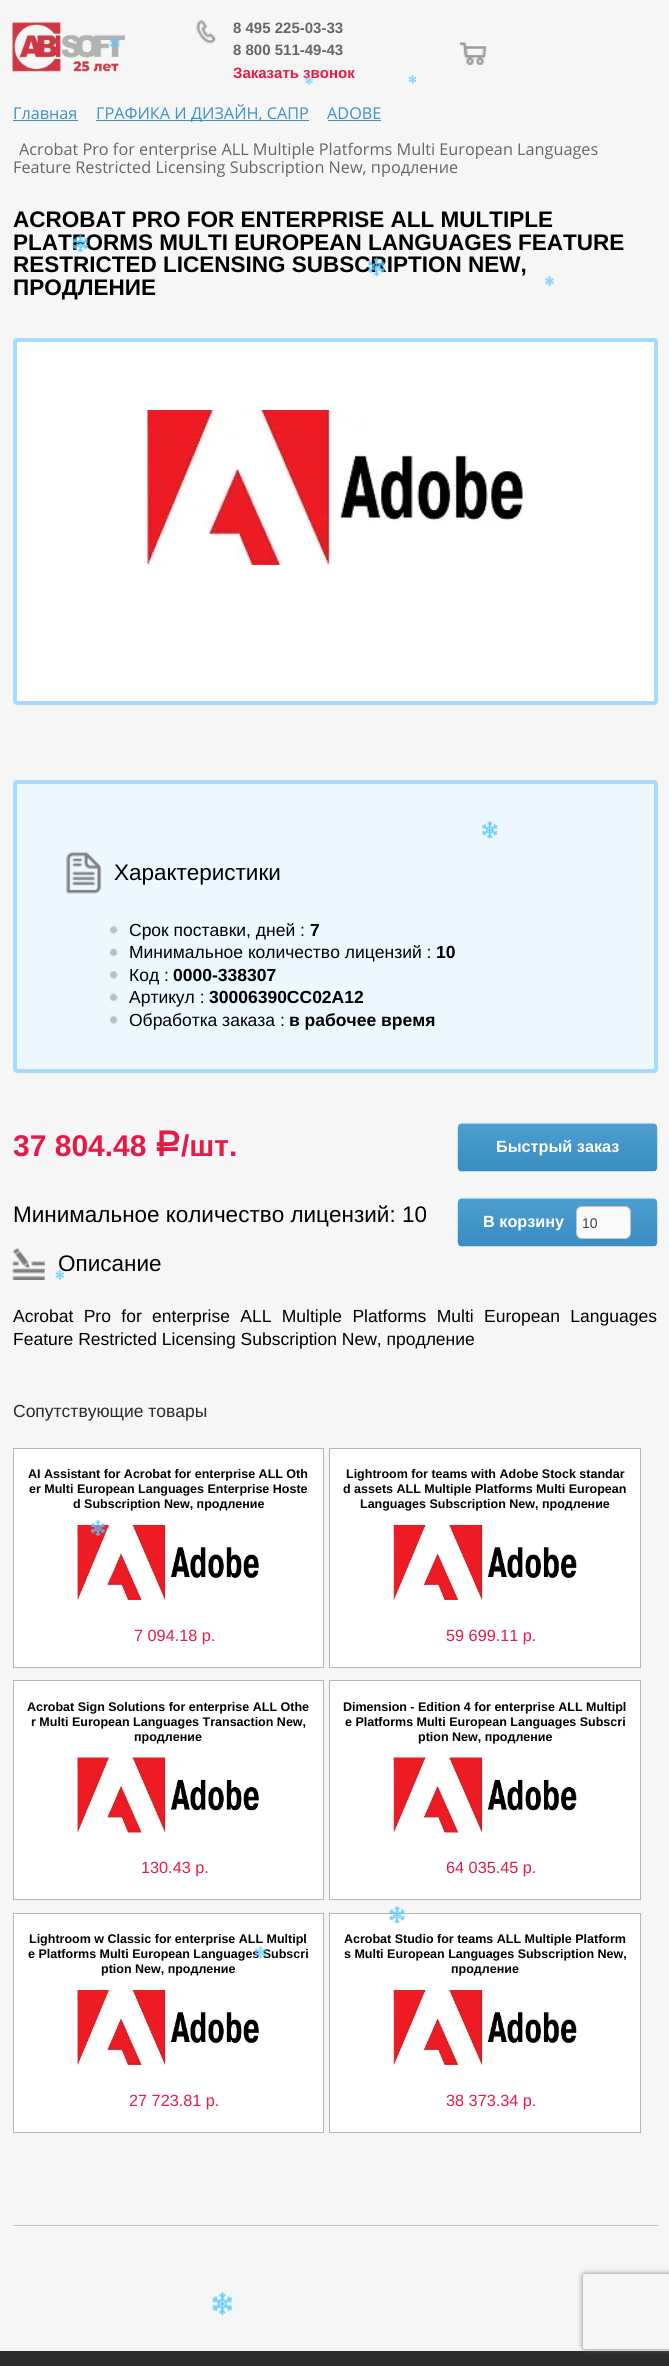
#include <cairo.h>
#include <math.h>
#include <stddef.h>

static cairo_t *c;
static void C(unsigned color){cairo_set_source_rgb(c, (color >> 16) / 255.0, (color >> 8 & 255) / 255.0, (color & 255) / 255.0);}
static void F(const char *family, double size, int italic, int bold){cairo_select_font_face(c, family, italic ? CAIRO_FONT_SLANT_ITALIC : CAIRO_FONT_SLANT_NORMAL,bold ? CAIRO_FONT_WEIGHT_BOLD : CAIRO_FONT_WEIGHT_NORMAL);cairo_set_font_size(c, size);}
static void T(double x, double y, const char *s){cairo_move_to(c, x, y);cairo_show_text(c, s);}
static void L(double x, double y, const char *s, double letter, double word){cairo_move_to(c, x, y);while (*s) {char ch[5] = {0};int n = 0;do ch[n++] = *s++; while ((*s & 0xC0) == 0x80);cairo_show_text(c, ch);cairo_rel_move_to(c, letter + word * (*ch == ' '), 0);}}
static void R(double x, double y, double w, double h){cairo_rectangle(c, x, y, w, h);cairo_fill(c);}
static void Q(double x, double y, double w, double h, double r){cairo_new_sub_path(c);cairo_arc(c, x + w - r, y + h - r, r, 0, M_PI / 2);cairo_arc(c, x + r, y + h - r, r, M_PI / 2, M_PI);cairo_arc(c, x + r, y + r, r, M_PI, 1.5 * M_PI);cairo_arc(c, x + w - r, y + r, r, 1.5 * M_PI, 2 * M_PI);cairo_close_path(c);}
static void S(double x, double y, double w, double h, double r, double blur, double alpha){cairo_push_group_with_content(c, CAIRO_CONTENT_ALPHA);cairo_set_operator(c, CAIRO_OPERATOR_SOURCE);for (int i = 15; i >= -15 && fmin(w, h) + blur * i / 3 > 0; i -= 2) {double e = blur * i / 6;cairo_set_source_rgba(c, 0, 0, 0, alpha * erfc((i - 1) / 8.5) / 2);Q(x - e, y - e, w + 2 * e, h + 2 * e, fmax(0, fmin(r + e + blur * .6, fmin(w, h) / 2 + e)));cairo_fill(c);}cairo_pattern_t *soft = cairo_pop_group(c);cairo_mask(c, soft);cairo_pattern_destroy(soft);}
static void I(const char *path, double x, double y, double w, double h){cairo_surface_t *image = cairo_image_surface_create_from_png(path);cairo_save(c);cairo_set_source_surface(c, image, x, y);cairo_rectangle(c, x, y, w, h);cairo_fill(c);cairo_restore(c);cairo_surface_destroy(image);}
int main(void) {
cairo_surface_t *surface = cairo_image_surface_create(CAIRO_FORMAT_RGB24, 669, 2366);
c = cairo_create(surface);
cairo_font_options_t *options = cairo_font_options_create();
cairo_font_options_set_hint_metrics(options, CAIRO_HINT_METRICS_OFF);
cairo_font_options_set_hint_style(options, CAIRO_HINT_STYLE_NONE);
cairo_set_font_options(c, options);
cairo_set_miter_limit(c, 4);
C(0xf6f6f6);
cairo_paint(c);
I("1.png",12,22,113,50);
I("2.png",196,20,20,24);
F("Liberation Sans",15,0,1);
C(0x666666);
T(233,33,"8 495 225-03-33");
T(233,55,"8 800 511-49-43");
C(0xe51a46);
T(233,78,"Заказать звонок");
I("3.png",460,42,27,23);
F("Open Sans",16.25,0,0);
C(0x3e90c4);
T(13,119,"Главная");
R(13,120,65,1);
R(96,120,213,1);
T(96,119,"ГРАФИКА И ДИЗАЙН, САПР");
T(327,119,"ADOBE");
R(328,120,53,1);
C(0x666666);
T(19,155,"Acrobat Pro for enterprise ALL Multiple Platforms Multi European Languages");
T(13,173,"Feature Restricted Licensing Subscription New, продление");
F("Liberation Sans",22.5,0,1);
C(0x000000);
T(13,227,"ACROBAT PRO FOR ENTERPRISE ALL MULTIPLE");
T(13,250,"PLATFORMS MULTI EUROPEAN LANGUAGES FEATURE");
T(13,272,"RESTRICTED LICENSING SUBSCRIPTION NEW,");
T(13,295,"ПРОДЛЕНИЕ");
C(0xc4c0be);
R(13,2225,645,1);
C(0xffffff);
Q(15,340,641,363,2);
cairo_fill_preserve(c);
C(0xa7dbfc);
cairo_set_line_width(c,4);
cairo_stroke(c);
I("4.png",147,410,376,155);
C(0xedf8fe);
Q(15,782,641,289,2);
cairo_fill_preserve(c);
C(0xa7dbfc);
cairo_stroke(c);
I("5.png",66,852,36,42);
F("Liberation Sans",22.5,0,0);
C(0x000000);
T(114,880,"Характеристики");
I("6.png",110,926,8,8);
F("Liberation Sans",17.5,0,0);
T(129,936,"Срок поставки, дней :");
F("Liberation Sans",17.5,0,1);
T(310,936,"7");
I("7.png",110,948,8,9);
F("Liberation Sans",17.5,0,0);
T(129,958,"Минимальное количество лицензий :");
F("Liberation Sans",17.5,0,1);
T(436,958,"10");
I("6.png",110,971,8,8);
F("Liberation Sans",17.5,0,0);
T(129,981,"Код :");
F("Liberation Sans",17.5,0,1);
T(173,981,"0000-338307");
I("7.png",110,993,8,9);
F("Liberation Sans",17.5,0,0);
T(129,1003,"Артикул :");
F("Liberation Sans",17.5,0,1);
T(209,1003,"30006390CC02A12");
I("6.png",110,1016,8,8);
F("Liberation Sans",17.5,0,0);
T(129,1026,"Обработка заказа :");
F("Liberation Sans",17.5,0,1);
T(289,1026,"в рабочее время");
F("Liberation Sans",30,0,1);
C(0xe51a46);
T(13,1156,"37 804.48");
F("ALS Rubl",35,0,1);
T(154,1156,"a");
F("Liberation Sans",30,0,1);
T(181,1156,"/шт.");
I("8.png",457,1122,201,50);
F("Liberation Sans",16.25,0,1);
C(0xffffff);
T(496,1152,"Быстрый заказ");
I("9.png",457,1197,201,50);
T(483,1227,"В корзину");
C(0xf9f9f9);
Q(576.5,1206.5,54,32,5.5);
cairo_fill_preserve(c);
C(0xc5bfbd);
cairo_set_line_width(c,1);
cairo_stroke(c);
F("Liberation Sans",14,0,0);
C(0x404040);
T(582,1228,"10");
F("Liberation Sans",22.5,0,0);
C(0x000000);
T(13,1222,"Минимальное количество лицензий: 10");
I("10.png",12,1248,33,32);
T(58,1271,"Описание");
F("Liberation Sans",17.5,0,0);
L(13,1322,"Acrobat Pro for enterprise ALL Multiple Platforms Multi European Languages",0,5.5);
T(13,1345,"Feature Restricted Licensing Subscription New, продление");
C(0x2a2a2a);
T(13,1417,"Сопутствующие товары");
C(0xffffff);
cairo_rectangle(c,13.5,1448.5,310,219);
cairo_fill_preserve(c);
C(0xb3b5b7);
cairo_stroke(c);
F("Liberation Sans",12.5,0,1);
C(0x000000);
T(28,1478,"AI Assistant for Acrobat for enterprise ALL Oth");
T(29,1493,"er Multi European Languages Enterprise Hoste");
T(73,1508,"d Subscription New, продление");
I("11.png",77,1525,182,75);
F("Liberation Sans",16.25,0,0);
C(0xe51a46);
T(134,1641,"7 094.18 р.");
C(0xffffff);
cairo_rectangle(c,329.5,1448.5,311,219);
cairo_fill_preserve(c);
C(0xb3b5b7);
cairo_stroke(c);
F("Liberation Sans",12.5,0,1);
C(0x000000);
T(346,1478,"Lightroom for teams with Adobe Stock standar");
T(343,1493,"d assets ALL Multiple Platforms Multi European");
T(360,1508,"Languages Subscription New, продление");
I("12.png",393,1525,184,75);
F("Liberation Sans",16.25,0,0);
C(0xe51a46);
T(446,1641,"59 699.11 р.");
C(0xffffff);
cairo_rectangle(c,13.5,1680.5,310,219);
cairo_fill_preserve(c);
C(0xb3b5b7);
cairo_stroke(c);
F("Liberation Sans",12.5,0,1);
C(0x000000);
T(27,1711,"Acrobat Sign Solutions for enterprise ALL Othe");
T(31,1726,"r Multi European Languages Transaction New,");
T(134,1741,"продление");
I("13.png",77,1757,182,76);
F("Liberation Sans",16.25,0,0);
C(0xe51a46);
T(141,1873,"130.43 р.");
C(0xffffff);
cairo_rectangle(c,329.5,1680.5,311,219);
cairo_fill_preserve(c);
C(0xb3b5b7);
cairo_stroke(c);
F("Liberation Sans",12.5,0,1);
C(0x000000);
T(343,1711,"Dimension - Edition 4 for enterprise ALL Multipl");
T(345,1726,"e Platforms Multi European Languages Subscri");
T(418,1741,"ption New, продление");
I("14.png",393,1757,184,76);
F("Liberation Sans",16.25,0,0);
C(0xe51a46);
T(446,1873,"64 035.45 р.");
C(0xffffff);
cairo_rectangle(c,13.5,1913.5,310,219);
cairo_fill_preserve(c);
C(0xb3b5b7);
cairo_stroke(c);
F("Liberation Sans",12.5,0,1);
C(0x000000);
T(29,1943,"Lightroom w Classic for enterprise ALL Multipl");
T(28,1958,"e Platforms Multi European Languages Subscri");
T(101,1973,"ption New, продление");
I("11.png",77,1990,182,75);
F("Liberation Sans",16.25,0,0);
C(0xe51a46);
T(129,2106,"27 723.81 р.");
C(0xffffff);
cairo_rectangle(c,329.5,1913.5,311,219);
cairo_fill_preserve(c);
C(0xb3b5b7);
cairo_stroke(c);
F("Liberation Sans",12.5,0,1);
C(0x000000);
T(344,1943,"Acrobat Studio for teams ALL Multiple Platform");
T(344,1958,"s Multi European Languages Subscription New,");
T(451,1973,"продление");
I("12.png",393,1990,184,75);
F("Liberation Sans",16.25,0,0);
C(0xe51a46);
T(446,2106,"38 373.34 р.");
C(0x2b2b2b);
R(0,2351,669,15);
I("15.png",109,37,12,12);
I("16.png",304,76,9,10);
I("17.png",408,75,9,9);
I("18.png",72,235,17,18);
I("19.png",368,257,17,20);
I("20.png",544,276,11,11);
I("21.png",482,821,16,19);
I("22.png",55,1270,10,10);
I("23.png",90,1520,16,16);
I("24.png",389,1906,17,19);
I("25.png",254,1946,13,14);
I("26.png",212,2292,21,24);
cairo_save(c);
cairo_set_fill_rule(c,CAIRO_FILL_RULE_EVEN_ODD);
cairo_new_path(c);
cairo_move_to(c,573,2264);
cairo_line_to(c,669,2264);
cairo_line_to(c,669,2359);
cairo_line_to(c,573,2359);
cairo_close_path(c);
cairo_move_to(c,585.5,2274);
cairo_line_to(c,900.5,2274);
cairo_curve_to(c,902,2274,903,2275,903,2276.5);
cairo_line_to(c,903,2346.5);
cairo_curve_to(c,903,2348,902,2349,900.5,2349);
cairo_line_to(c,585.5,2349);
cairo_curve_to(c,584,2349,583,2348,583,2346.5);
cairo_line_to(c,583,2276.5);
cairo_curve_to(c,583,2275,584,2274,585.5,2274);
cairo_close_path(c);
cairo_clip(c);
C(0x808080);
S(583,2274,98,75,2.5,3,1);
cairo_restore(c);
cairo_surface_write_to_png(surface, "o.png");
cairo_font_options_destroy(options);
cairo_destroy(c);
cairo_surface_destroy(surface);
return 0;
}
